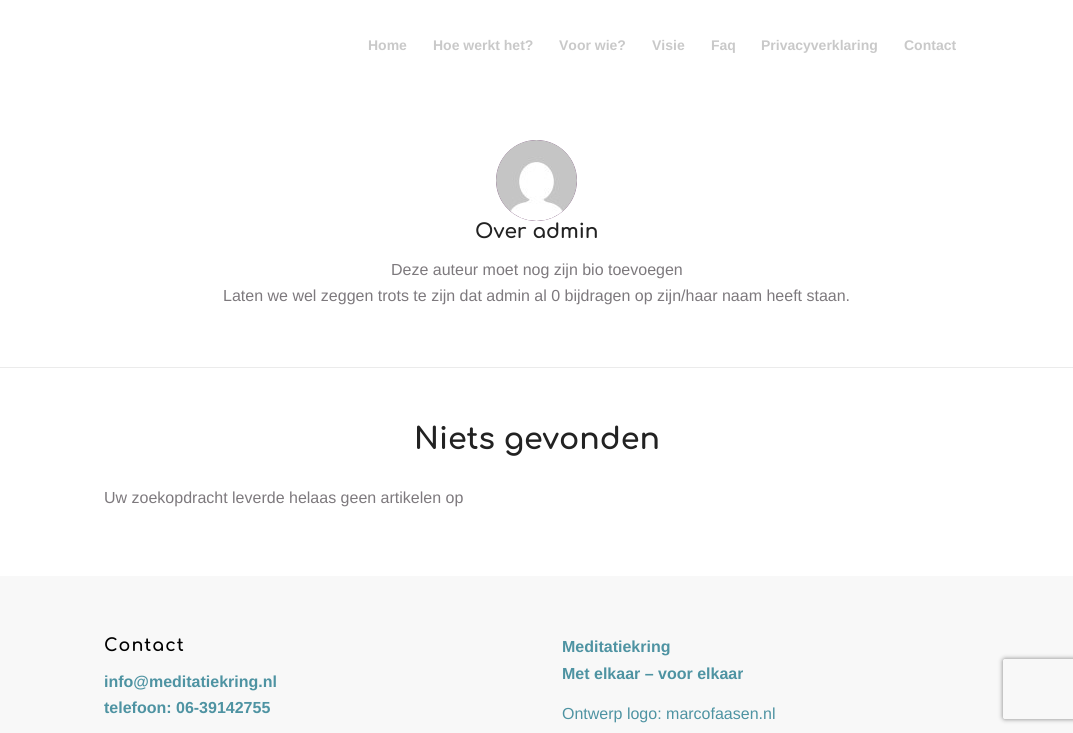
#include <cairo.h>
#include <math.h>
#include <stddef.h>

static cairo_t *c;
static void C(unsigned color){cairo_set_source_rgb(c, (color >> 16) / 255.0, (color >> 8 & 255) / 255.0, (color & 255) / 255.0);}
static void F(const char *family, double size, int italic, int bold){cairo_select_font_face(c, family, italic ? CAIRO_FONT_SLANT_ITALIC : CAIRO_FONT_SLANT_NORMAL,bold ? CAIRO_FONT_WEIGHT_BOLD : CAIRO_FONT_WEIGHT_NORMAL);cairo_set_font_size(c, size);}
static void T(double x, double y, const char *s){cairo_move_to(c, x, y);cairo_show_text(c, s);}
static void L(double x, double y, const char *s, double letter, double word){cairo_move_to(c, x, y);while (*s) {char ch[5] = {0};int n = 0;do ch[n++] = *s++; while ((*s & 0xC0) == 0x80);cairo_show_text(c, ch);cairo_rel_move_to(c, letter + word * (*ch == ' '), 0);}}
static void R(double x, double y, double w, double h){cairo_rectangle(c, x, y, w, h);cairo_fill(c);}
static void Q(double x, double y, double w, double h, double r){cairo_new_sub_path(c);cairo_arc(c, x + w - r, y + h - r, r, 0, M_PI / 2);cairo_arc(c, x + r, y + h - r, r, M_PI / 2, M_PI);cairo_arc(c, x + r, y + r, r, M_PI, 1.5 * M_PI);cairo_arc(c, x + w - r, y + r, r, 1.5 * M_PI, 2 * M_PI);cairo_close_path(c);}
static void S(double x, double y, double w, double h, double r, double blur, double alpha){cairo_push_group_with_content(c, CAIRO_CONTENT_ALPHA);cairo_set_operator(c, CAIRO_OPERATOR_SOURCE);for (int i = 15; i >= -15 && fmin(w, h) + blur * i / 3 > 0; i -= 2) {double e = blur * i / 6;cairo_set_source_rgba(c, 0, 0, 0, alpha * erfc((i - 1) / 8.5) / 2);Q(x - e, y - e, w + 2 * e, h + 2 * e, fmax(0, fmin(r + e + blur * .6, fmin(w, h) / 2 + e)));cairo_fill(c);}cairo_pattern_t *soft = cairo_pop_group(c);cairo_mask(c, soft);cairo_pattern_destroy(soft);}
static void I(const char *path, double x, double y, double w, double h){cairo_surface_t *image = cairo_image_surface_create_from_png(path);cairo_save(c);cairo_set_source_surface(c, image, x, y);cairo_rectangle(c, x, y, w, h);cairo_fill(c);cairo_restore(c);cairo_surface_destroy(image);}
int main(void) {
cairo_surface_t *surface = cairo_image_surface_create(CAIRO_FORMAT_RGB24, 1073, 733);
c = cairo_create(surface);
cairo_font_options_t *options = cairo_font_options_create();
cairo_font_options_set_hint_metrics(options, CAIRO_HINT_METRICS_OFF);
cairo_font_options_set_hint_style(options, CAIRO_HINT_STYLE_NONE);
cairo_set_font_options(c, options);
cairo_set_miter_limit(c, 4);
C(0xffffff);
cairo_paint(c);
F("Liberation Sans",14,0,1);
C(0xc9c9c9);
T(368,50,"Home");
T(433,50,"Hoe werkt het?");
T(559,50,"Voor wie?");
T(652,50,"Visie");
T(711,50,"Faq");
T(761,50,"Privacyverklaring");
T(904,50,"Contact");
C(0x8f708f);
cairo_new_path(c);
cairo_arc(c,536.5,180.5,40.5,0,2 * M_PI);
cairo_fill(c);
I("1.png",496,140,81,81);
F("Comfortaa",20,0,1);
C(0x222222);
T(475,238,"Over admin");
F("Liberation Sans",16,0,0);
C(0x7d797d);
T(391,275,"Deze auteur moet nog zijn bio toevoegen");
T(223,301,"Laten we wel zeggen trots te zijn dat admin al 0 bijdragen op zijn/haar naam heeft staan.");
C(0xebebeb);
R(0,367,1073,1);
F("Comfortaa",30,0,1);
C(0x222222);
T(414,449,"Niets gevonden");
F("Liberation Sans",16,0,0);
C(0x7d797d);
T(104,503,"Uw zoekopdracht leverde helaas geen artikelen op");
C(0xf8f8f8);
R(0,576,1073,157);
F("Comfortaa",17.5,0,1);
C(0x000000);
L(104,651,"Contact",1,0);
F("Liberation Sans",16,0,1);
C(0x4e93a2);
T(104,687,"info@meditatiekring.nl");
T(104,713,"telefoon: 06-39142755");
T(562,652,"Meditatiekring");
T(562,679,"Met elkaar – voor elkaar");
F("Liberation Sans",16,0,0);
T(562,719,"Ontwerp logo: marcofaasen.nl");
cairo_save(c);
cairo_set_fill_rule(c,CAIRO_FILL_RULE_EVEN_ODD);
cairo_new_path(c);
cairo_move_to(c,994,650);
cairo_line_to(c,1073,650);
cairo_line_to(c,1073,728);
cairo_line_to(c,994,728);
cairo_close_path(c);
cairo_move_to(c,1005,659);
cairo_line_to(c,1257,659);
cairo_curve_to(c,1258,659,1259,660,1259,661);
cairo_line_to(c,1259,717);
cairo_curve_to(c,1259,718,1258,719,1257,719);
cairo_line_to(c,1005,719);
cairo_curve_to(c,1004,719,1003,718,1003,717);
cairo_line_to(c,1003,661);
cairo_curve_to(c,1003,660,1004,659,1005,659);
cairo_close_path(c);
cairo_clip(c);
C(0x808080);
S(1003,659,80,60,2,2.5,1);
cairo_restore(c);
cairo_surface_write_to_png(surface, "o.png");
cairo_font_options_destroy(options);
cairo_destroy(c);
cairo_surface_destroy(surface);
return 0;
}
